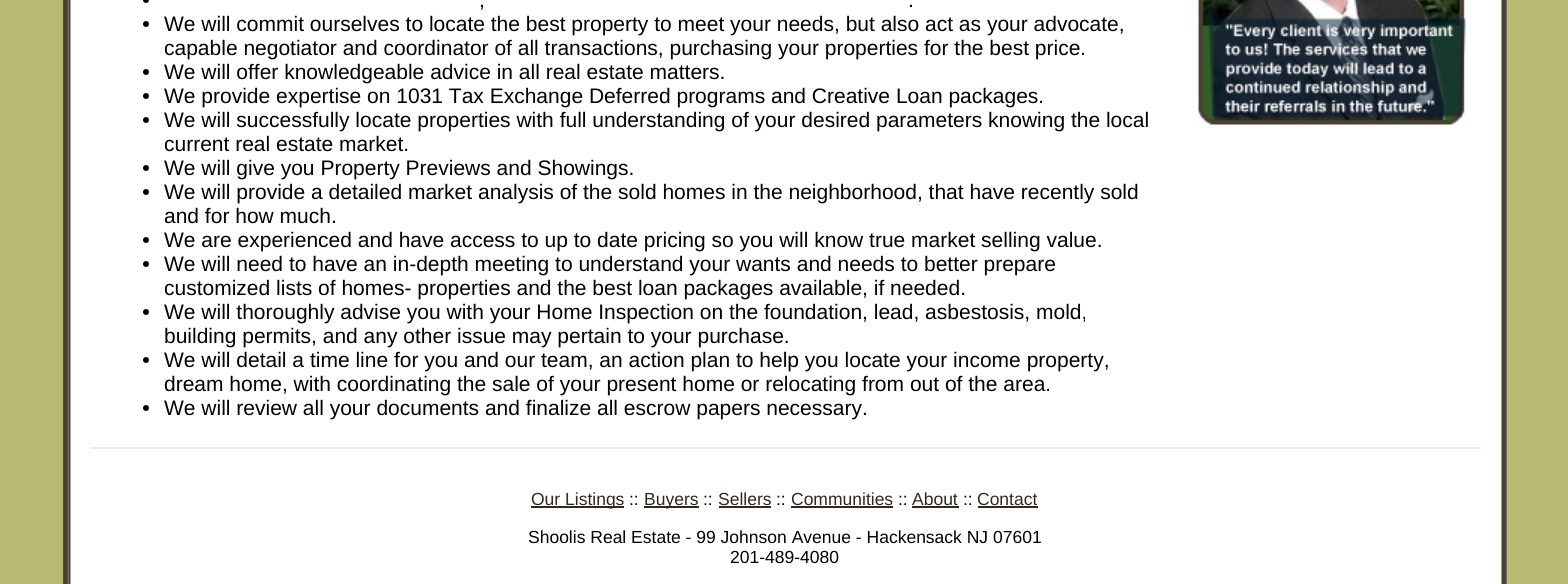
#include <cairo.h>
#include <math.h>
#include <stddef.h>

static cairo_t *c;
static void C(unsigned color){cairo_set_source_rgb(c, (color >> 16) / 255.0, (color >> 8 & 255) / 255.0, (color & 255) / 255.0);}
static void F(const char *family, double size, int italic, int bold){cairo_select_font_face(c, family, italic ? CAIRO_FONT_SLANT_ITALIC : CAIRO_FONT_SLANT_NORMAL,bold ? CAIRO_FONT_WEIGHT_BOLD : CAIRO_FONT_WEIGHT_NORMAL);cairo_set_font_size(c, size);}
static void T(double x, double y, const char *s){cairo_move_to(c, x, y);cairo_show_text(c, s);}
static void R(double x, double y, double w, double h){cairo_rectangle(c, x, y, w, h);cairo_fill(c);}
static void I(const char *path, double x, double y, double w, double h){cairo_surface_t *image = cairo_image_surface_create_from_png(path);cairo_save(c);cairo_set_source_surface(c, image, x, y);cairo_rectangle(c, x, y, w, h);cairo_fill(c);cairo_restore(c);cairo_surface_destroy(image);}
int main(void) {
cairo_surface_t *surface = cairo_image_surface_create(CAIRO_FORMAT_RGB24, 1568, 584);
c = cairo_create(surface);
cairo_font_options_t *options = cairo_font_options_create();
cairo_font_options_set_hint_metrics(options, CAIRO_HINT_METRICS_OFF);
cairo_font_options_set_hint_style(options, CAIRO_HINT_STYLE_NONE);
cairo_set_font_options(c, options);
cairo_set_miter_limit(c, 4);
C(0xb8ba72);
cairo_paint(c);
C(0xffffff);
R(70,0,1438,584);
I("1.png",63,0,8,584);
C(0x000000);
cairo_arc(c,146,0,3,0,2 * M_PI);
cairo_fill(c);
F("Liberation Sans",21,0,0);
T(479,7,",");
T(908,7,".");
cairo_new_path(c);
cairo_arc(c,146,24,3,0,2 * M_PI);
cairo_fill(c);
T(164,31,"We will commit ourselves to locate the best property to meet your needs, but also act as your advocate,");
T(164,55,"capable negotiator and coordinator of all transactions, purchasing your properties for the best price.");
cairo_new_path(c);
cairo_arc(c,146,72,3,0,2 * M_PI);
cairo_fill(c);
T(164,79,"We will offer knowledgeable advice in all real estate matters.");
cairo_new_path(c);
cairo_arc(c,146,96,3,0,2 * M_PI);
cairo_fill(c);
T(164,103,"We provide expertise on 1031 Tax Exchange Deferred programs and Creative Loan packages.");
cairo_new_path(c);
cairo_arc(c,146,120,3,0,2 * M_PI);
cairo_fill(c);
T(164,127,"We will successfully locate properties with full understanding of your desired parameters knowing the local");
T(164,151,"current real estate market.");
cairo_new_path(c);
cairo_arc(c,146,168,3,0,2 * M_PI);
cairo_fill(c);
T(164,175,"We will give you Property Previews and Showings.");
cairo_new_path(c);
cairo_arc(c,146,192,3,0,2 * M_PI);
cairo_fill(c);
T(164,199,"We will provide a detailed market analysis of the sold homes in the neighborhood, that have recently sold");
T(164,223,"and for how much.");
cairo_new_path(c);
cairo_arc(c,146,240,3,0,2 * M_PI);
cairo_fill(c);
T(164,247,"We are experienced and have access to up to date pricing so you will know true market selling value.");
cairo_new_path(c);
cairo_arc(c,146,264,3,0,2 * M_PI);
cairo_fill(c);
T(164,271,"We will need to have an in-depth meeting to understand your wants and needs to better prepare");
T(164,295,"customized lists of homes- properties and the best loan packages available, if needed.");
cairo_new_path(c);
cairo_arc(c,146,312,3,0,2 * M_PI);
cairo_fill(c);
T(164,319,"We will thoroughly advise you with your Home Inspection on the foundation, lead, asbestosis, mold,");
T(164,343,"building permits, and any other issue may pertain to your purchase.");
cairo_new_path(c);
cairo_arc(c,146,360,3,0,2 * M_PI);
cairo_fill(c);
T(164,367,"We will detail a time line for you and our team, an action plan to help you locate your income property,");
T(164,391,"dream home, with coordinating the sale of your present home or relocating from out of the area.");
cairo_new_path(c);
cairo_arc(c,146,408,3,0,2 * M_PI);
cairo_fill(c);
T(164,415,"We will review all your documents and finalize all escrow papers necessary.");
I("2.png",1194,0,272,125);
C(0xededed);
R(90,447,1391,2);
C(0x2f291f);
R(531,506,93,2);
F("Liberation Sans",17.5,0,0);
T(531,505,"Our Listings");
C(0x000000);
T(629,505,"::");
C(0x2f291f);
R(644,506,55,2);
T(644,505,"Buyers");
C(0x000000);
T(703,505,"::");
C(0x2f291f);
T(718,505,"Sellers");
R(719,506,52,2);
C(0x000000);
T(776,505,"::");
C(0x2f291f);
T(791,505,"Communities");
R(791,506,102,2);
C(0x000000);
T(898,505,"::");
C(0x2f291f);
T(912,505,"About");
R(912,506,47,2);
C(0x000000);
T(963,505,"::");
C(0x2f291f);
T(977,505,"Contact");
R(978,506,60,2);
C(0x000000);
T(528,543,"Shoolis Real Estate - 99 Johnson Avenue - Hackensack NJ 07601");
T(730,563,"201-489-4080");
I("3.png",1501,0,7,584);
cairo_surface_write_to_png(surface, "o.png");
cairo_font_options_destroy(options);
cairo_destroy(c);
cairo_surface_destroy(surface);
return 0;
}
